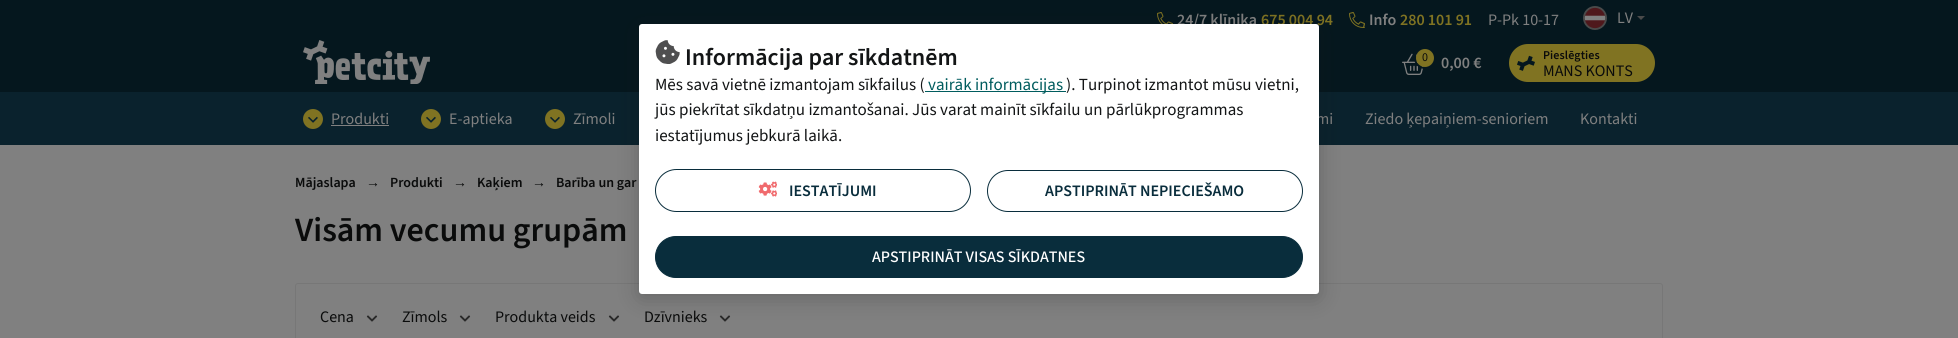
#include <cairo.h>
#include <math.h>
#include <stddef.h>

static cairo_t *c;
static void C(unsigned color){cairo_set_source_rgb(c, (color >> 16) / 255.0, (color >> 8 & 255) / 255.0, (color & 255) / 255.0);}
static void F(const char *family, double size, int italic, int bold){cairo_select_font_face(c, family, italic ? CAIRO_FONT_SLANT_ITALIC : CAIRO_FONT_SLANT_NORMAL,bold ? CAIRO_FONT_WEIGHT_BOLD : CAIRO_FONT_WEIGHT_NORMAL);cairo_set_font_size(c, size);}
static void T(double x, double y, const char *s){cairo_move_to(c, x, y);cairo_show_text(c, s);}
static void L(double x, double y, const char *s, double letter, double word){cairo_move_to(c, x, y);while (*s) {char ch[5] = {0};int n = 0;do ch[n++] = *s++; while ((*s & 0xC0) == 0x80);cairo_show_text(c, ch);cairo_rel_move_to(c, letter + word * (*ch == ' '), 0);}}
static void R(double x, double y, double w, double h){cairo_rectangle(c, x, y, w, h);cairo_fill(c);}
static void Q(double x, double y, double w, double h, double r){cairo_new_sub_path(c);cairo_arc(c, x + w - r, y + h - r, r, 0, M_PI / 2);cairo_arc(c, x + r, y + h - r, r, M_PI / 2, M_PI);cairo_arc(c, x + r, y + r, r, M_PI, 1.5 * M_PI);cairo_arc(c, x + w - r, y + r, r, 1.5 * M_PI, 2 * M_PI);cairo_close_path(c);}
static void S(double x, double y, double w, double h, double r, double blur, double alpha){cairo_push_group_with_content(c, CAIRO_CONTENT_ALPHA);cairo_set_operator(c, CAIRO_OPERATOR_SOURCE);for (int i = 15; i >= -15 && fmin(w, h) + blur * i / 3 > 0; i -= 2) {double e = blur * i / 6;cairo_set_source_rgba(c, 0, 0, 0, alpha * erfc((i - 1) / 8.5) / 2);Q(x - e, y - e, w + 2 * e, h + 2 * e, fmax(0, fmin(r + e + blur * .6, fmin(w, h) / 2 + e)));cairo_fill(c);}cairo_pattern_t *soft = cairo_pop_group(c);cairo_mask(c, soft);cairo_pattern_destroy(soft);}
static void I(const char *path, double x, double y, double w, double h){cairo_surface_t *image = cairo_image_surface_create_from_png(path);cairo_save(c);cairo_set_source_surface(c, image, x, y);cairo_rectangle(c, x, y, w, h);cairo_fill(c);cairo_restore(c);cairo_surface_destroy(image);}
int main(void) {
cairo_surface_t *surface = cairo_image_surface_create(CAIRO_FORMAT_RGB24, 1958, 338);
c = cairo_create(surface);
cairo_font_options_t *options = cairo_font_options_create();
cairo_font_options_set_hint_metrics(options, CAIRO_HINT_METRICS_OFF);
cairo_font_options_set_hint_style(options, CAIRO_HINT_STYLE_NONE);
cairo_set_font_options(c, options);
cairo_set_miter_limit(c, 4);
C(0x808080);
cairo_paint(c);
C(0x05171e);
R(0,0,1958,92);
I("1.png",1157,12,16,12);
F("Source Sans 3 SemiBold",16,0,0);
C(0x808080);
T(1177,25,"24/7 klīnika");
C(0x807322);
T(1261,25,"675 004 94");
I("2.png",1349,12,16,16);
C(0x808080);
T(1369,25,"Info");
C(0x807322);
T(1400,25,"280 101 91");
F("Source Sans 3",16,0,0);
C(0x808080);
T(1488,25,"P-Pk 10-17");
I("3.png",1583,6,24,24);
T(1617,23,"LV");
C(0x4a4a4a);
cairo_new_path(c);
cairo_move_to(c,1637,16);
cairo_line_to(c,1645,16);
cairo_line_to(c,1641,20);
cairo_close_path(c);
cairo_fill(c);
C(0x0a222d);
R(0,92,1958,53);
I("4.png",303,40,127,44);
I("5.png",1402,53,22,22);
cairo_arc(c,1425,58,10,0,2 * M_PI);
C(0x05171e);
cairo_stroke(c);
C(0x807322);
cairo_arc(c,1425,58,9,0,2 * M_PI);
cairo_fill(c);
F("Source Sans 3",12,0,0);
C(0x0a0b0b);
T(1422,61,"0");
F("Source Sans 3 SemiBold",16,0,0);
C(0x808080);
T(1441,68,"0,00 €");
C(0x807322);
Q(1509,44,146,38,19);
cairo_fill(c);
I("6.png",1517,55,18,16);
F("Source Sans 3 SemiBold",12,0,0);
C(0x0a0b0b);
L(1543,59,"Pieslēgties",.1,0);
F("Source Sans 3",16,0,0);
T(1543,76,"MANS KONTS");
I("7.png",303,109,20,20);
C(0x808080);
T(331,124,"Produkti");
R(331,125,58,1);
I("7.png",421,109,20,20);
T(449,124,"E-aptieka");
I("7.png",545,109,20,20);
T(573,124,"Zīmoli");
T(1316,124,"mi");
T(1365,124,"Ziedo ķepaiņiem-senioriem");
T(1580,124,"Kontakti");
F("Source Sans 3 SemiBold",14,0,0);
C(0x0a0b0b);
T(295,187,"Mājaslapa");
F("Liberation Sans",14,0,1);
T(366,187,"→");
F("Source Sans 3 SemiBold",14,0,0);
T(390,187,"Produkti");
F("Liberation Sans",14,0,1);
T(453,187,"→");
F("Source Sans 3 SemiBold",14,0,0);
T(477,187,"Kaķiem");
F("Liberation Sans",14,0,1);
T(532,187,"→");
F("Source Sans 3 SemiBold",14,0,0);
T(556,187,"Barība un gar");
F("Source Sans 3 SemiBold",34,0,0);
T(295,241,"Visām vecumu grupām");
cairo_new_path(c);
cairo_move_to(c,298,283.5);
cairo_line_to(c,1660,283.5);
cairo_curve_to(c,1661.5,283.5,1662.5,284.5,1662.5,286);
cairo_line_to(c,1662.5,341.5);
cairo_line_to(c,295.5,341.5);
cairo_line_to(c,295.5,286);
cairo_curve_to(c,295.5,284.5,296.5,283.5,298,283.5);
cairo_close_path(c);
C(0x777777);
cairo_set_line_width(c,1);
cairo_stroke(c);
F("Source Sans 3",16,0,0);
C(0x0a0b0b);
T(320,322,"Cena");
I("8.png",366,315,12,7);
T(402,322,"Zīmols");
I("8.png",459,315,12,7);
T(495,322,"Produkta veids");
I("8.png",608,315,12,7);
T(644,322,"Dzīvnieks");
I("8.png",719,315,12,7);
C(0x131516);
S(639,28,680,270,3,10,.25);
C(0xffffff);
Q(639,24,680,270,3);
cairo_fill(c);
I("9.png",655,40,25,24);
F("Source Sans 3 SemiBold",24,0,0);
C(0x131516);
T(685,65,"Informācija par sīkdatnēm");
F("Source Sans 3",17,0,0);
T(655,90,"Mēs savā vietnē izmantojam sīkfailus (");
C(0x005c5e);
R(925,91,141,1);
T(928,90,"vairāk informācijas");
C(0x131516);
T(1066,90,"). Turpinot izmantot mūsu vietni,");
T(655,115,"jūs piekrītat sīkdatņu izmantošanai. Jūs varat mainīt sīkfailu un pārlūkprogrammas");
T(655,141,"iestatījumus jebkurā laikā.");
Q(655.5,169.5,315,42,21);
C(0x092d3c);
cairo_stroke(c);
I("10.png",758,181,19,16);
F("Source Sans 3 SemiBold",16,0,0);
T(789,196,"IESTATĪJUMI");
Q(987.5,170.5,315,41,20.5);
cairo_stroke(c);
T(1045,196,"APSTIPRINĀT NEPIECIEŠAMO");
Q(655.5,236.5,647,41,20.5);
cairo_fill_preserve(c);
cairo_stroke(c);
F("Source Sans 3 Medium",16,0,0);
C(0xffffff);
T(872,262,"APSTIPRINĀT VISAS SĪKDATNES");
cairo_surface_write_to_png(surface, "o.png");
cairo_font_options_destroy(options);
cairo_destroy(c);
cairo_surface_destroy(surface);
return 0;
}
